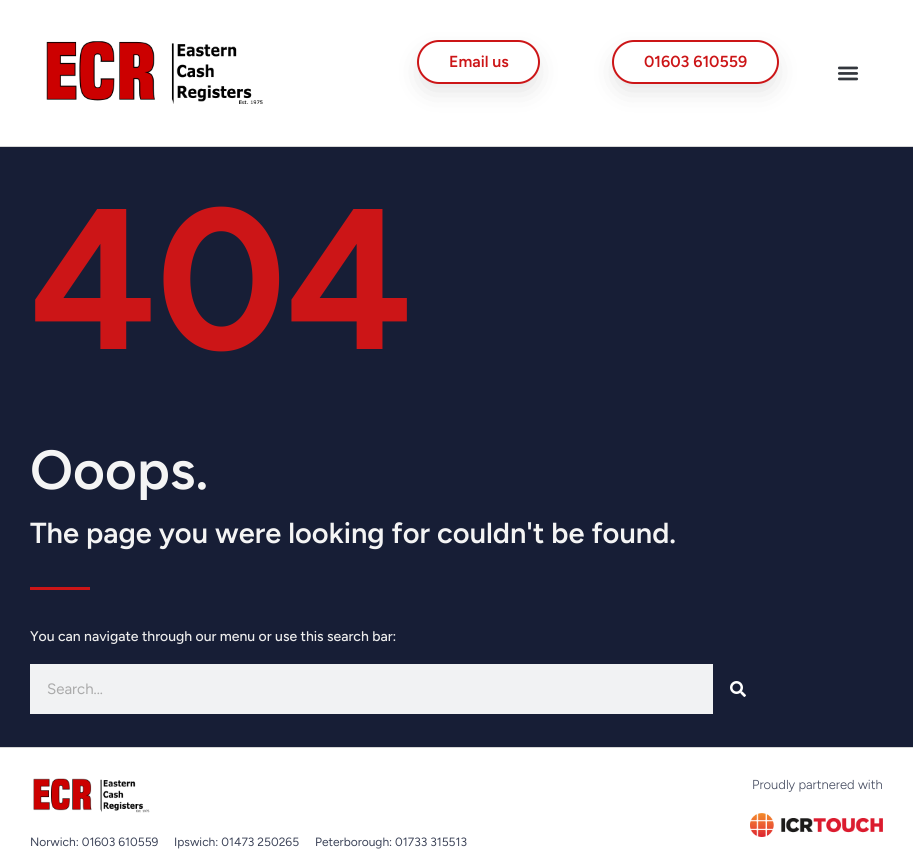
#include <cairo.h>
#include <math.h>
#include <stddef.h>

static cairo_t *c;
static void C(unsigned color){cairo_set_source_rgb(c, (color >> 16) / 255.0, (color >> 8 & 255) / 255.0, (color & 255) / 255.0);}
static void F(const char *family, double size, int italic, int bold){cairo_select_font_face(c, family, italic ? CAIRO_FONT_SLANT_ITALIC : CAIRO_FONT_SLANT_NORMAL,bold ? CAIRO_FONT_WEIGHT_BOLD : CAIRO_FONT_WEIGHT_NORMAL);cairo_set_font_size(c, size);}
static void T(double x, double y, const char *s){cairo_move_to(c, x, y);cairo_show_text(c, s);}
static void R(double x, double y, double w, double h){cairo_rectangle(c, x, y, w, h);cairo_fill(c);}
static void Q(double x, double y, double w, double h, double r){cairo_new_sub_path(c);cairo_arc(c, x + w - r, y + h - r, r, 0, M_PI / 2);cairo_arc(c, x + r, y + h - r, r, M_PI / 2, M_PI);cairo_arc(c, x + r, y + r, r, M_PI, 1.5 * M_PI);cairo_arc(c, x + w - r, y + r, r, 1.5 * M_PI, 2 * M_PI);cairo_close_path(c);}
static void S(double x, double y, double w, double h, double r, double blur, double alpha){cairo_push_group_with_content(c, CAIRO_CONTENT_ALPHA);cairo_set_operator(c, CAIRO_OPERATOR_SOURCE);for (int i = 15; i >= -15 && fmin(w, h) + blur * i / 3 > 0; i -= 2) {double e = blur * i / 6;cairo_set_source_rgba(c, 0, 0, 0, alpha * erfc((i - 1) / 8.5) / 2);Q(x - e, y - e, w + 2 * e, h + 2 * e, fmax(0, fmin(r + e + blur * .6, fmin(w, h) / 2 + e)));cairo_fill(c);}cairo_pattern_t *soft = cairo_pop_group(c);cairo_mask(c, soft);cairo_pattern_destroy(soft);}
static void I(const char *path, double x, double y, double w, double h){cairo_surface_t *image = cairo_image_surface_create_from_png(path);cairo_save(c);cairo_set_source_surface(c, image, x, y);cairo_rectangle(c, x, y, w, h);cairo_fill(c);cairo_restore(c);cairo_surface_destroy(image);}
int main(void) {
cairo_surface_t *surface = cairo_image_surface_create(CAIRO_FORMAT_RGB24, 913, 861);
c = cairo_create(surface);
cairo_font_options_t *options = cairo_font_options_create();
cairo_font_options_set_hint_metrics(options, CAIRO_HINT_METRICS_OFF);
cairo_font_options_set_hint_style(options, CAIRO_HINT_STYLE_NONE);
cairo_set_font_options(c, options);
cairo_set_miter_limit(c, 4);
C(0xffffff);
cairo_paint(c);
C(0xd6d6d6);
R(0,146,913,1);
I("1.png",46,41,217,63);
C(0x000000);
S(426,59,105,26,13,15,.16);
C(0xffffff);
Q(418,41,121,42,21);
cairo_fill_preserve(c);
C(0xcc1517);
cairo_stroke(c);
F("Figtree SemiBold",16,0,0);
T(449,67,"Email us");
C(0x000000);
S(621,59,149,26,13,15,.16);
C(0xffffff);
Q(613,41,165,42,21);
cairo_fill_preserve(c);
C(0xcc1517);
cairo_stroke(c);
T(644,67,"01603 610559");
I("2.png",837,66,22,15);
C(0x171e36);
R(0,147,913,600);
F("Figtree",200,0,1);
C(0xcc1517);
T(30,349,"404");
F("Figtree SemiBold",55,0,0);
C(0xf4f4f4);
T(30,489,"Ooops.");
F("Figtree SemiBold",29,0,0);
T(30,543,"The page you were looking for couldn't be found.");
C(0xcc1517);
R(30,587,60,3);
F("Figtree Medium",14,0,0);
C(0xececec);
T(30,641,"You can navigate through our menu or use this search bar:");
C(0xf1f2f3);
R(30,664,683,50);
F("Figtree",15,0,0);
C(0xaaaaaa);
T(47,694,"Search...");
I("3.png",730,681,16,16);
C(0xd6d6d6);
R(0,747,913,1);
F("Figtree Light",13,0,0);
C(0x3d4459);
T(752,789,"Proudly partnered with");
I("4.png",750,813,133,24);
I("5.png",33,778,117,35);
F("Figtree",12,0,0);
T(30,846,"Norwich: 01603 610559");
T(174,846,"Ipswich: 01473 250265");
T(315,846,"Peterborough: 01733 315513");
cairo_surface_write_to_png(surface, "o.png");
cairo_font_options_destroy(options);
cairo_destroy(c);
cairo_surface_destroy(surface);
return 0;
}
